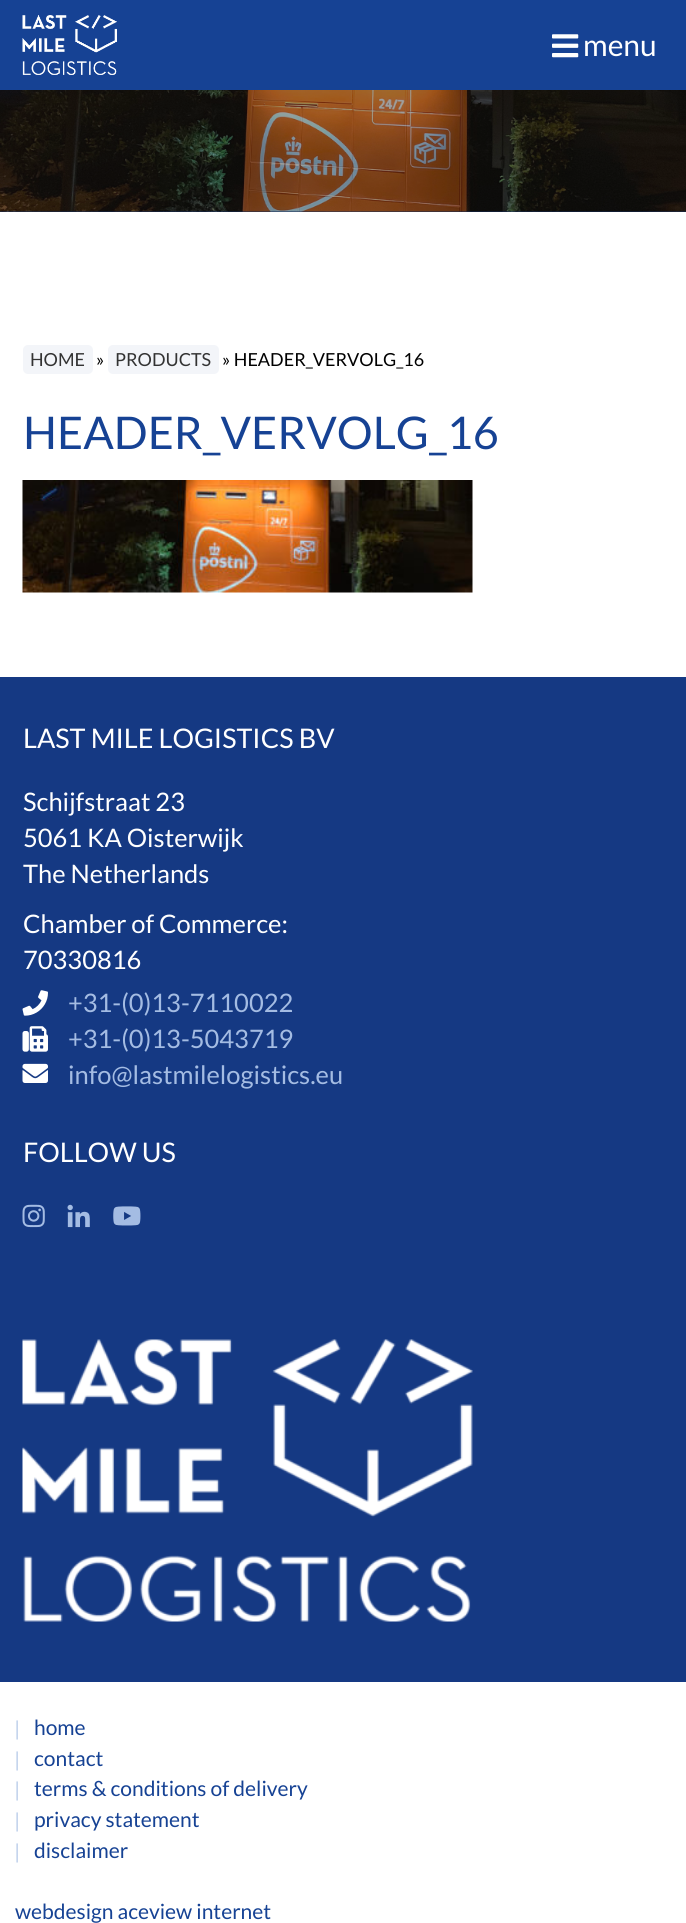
#include <cairo.h>
#include <math.h>
#include <stddef.h>

static cairo_t *c;
static void C(unsigned color){cairo_set_source_rgb(c, (color >> 16) / 255.0, (color >> 8 & 255) / 255.0, (color & 255) / 255.0);}
static void F(const char *family, double size, int italic, int bold){cairo_select_font_face(c, family, italic ? CAIRO_FONT_SLANT_ITALIC : CAIRO_FONT_SLANT_NORMAL,bold ? CAIRO_FONT_WEIGHT_BOLD : CAIRO_FONT_WEIGHT_NORMAL);cairo_set_font_size(c, size);}
static void T(double x, double y, const char *s){cairo_move_to(c, x, y);cairo_show_text(c, s);}
static void R(double x, double y, double w, double h){cairo_rectangle(c, x, y, w, h);cairo_fill(c);}
static void Q(double x, double y, double w, double h, double r){cairo_new_sub_path(c);cairo_arc(c, x + w - r, y + h - r, r, 0, M_PI / 2);cairo_arc(c, x + r, y + h - r, r, M_PI / 2, M_PI);cairo_arc(c, x + r, y + r, r, M_PI, 1.5 * M_PI);cairo_arc(c, x + w - r, y + r, r, 1.5 * M_PI, 2 * M_PI);cairo_close_path(c);}
static void I(const char *path, double x, double y, double w, double h){cairo_surface_t *image = cairo_image_surface_create_from_png(path);cairo_save(c);cairo_set_source_surface(c, image, x, y);cairo_rectangle(c, x, y, w, h);cairo_fill(c);cairo_restore(c);cairo_surface_destroy(image);}
int main(void) {
cairo_surface_t *surface = cairo_image_surface_create(CAIRO_FORMAT_RGB24, 686, 1923);
c = cairo_create(surface);
cairo_font_options_t *options = cairo_font_options_create();
cairo_font_options_set_hint_metrics(options, CAIRO_HINT_METRICS_OFF);
cairo_font_options_set_hint_style(options, CAIRO_HINT_STYLE_NONE);
cairo_set_font_options(c, options);
cairo_set_miter_limit(c, 4);
C(0xffffff);
cairo_paint(c);
C(0x164294);
R(0,0,686,90);
I("1.png",22,15,95,60);
I("2.png",552,34,27,24);
F("Lato",30,0,0);
C(0xffffff);
T(583,56,"menu");
C(0x152a57);
R(0,211,686,1);
I("3.png",3,211,681,1);
I("4.png",0,90,686,122);
C(0xf3f5f9);
Q(23,345,70,29,5);
cairo_fill(c);
F("Lato",18,0,0);
C(0x333333);
T(30,366,"HOME");
C(0x000000);
T(96,366,"»");
C(0xf3f5f9);
Q(108,345,111,29,5);
cairo_fill(c);
C(0x333333);
T(115,366,"PRODUCTS");
C(0x000000);
T(222,366,"» HEADER_VERVOLG_16");
F("Lato",45,0,0);
C(0x164294);
T(23,449,"HEADER_VERVOLG_16");
I("5.png",22,480,451,113);
C(0x153983);
R(0,677,686,1005);
F("Lato",27,0,0);
C(0xffffff);
T(23,748,"LAST MILE LOGISTICS BV");
F("Lato",25.5,0,0);
T(23,811,"Schijfstraat 23");
T(23,847,"5061 KA Oisterwijk");
T(23,883,"The Netherlands");
T(23,933,"Chamber of Commerce:");
T(23,969,"70330816");
I("6.png",22,990,26,26);
C(0xa4bce3);
T(68,1012,"+31-(0)13-7110022");
I("7.png",22,1026,26,26);
T(68,1048,"+31-(0)13-5043719");
I("8.png",22,1063,26,20);
T(68,1084,"info@lastmilelogistics.eu");
F("Lato",27,0,0);
C(0xffffff);
T(23,1162,"FOLLOW US");
I("9.png",22,1204,23,24);
I("10.png",67,1204,23,24);
I("11.png",113,1206,28,20);
I("12.png",22,1339,451,283);
F("Liberation Serif",21,0,0);
C(0xa4bce3);
T(15,1735,"|");
F("Lato",21,0,0);
C(0x164294);
T(34,1735,"home");
F("Liberation Serif",21,0,0);
C(0xa4bce3);
T(15,1766,"|");
F("Lato",21,0,0);
C(0x164294);
T(34,1766,"contact");
F("Liberation Serif",21,0,0);
C(0xa4bce3);
T(15,1796,"|");
F("Lato",21,0,0);
C(0x164294);
T(34,1796,"terms & conditions of delivery");
F("Liberation Serif",21,0,0);
C(0xa4bce3);
T(15,1827,"|");
F("Lato",21,0,0);
C(0x164294);
T(34,1827,"privacy statement");
F("Liberation Serif",21,0,0);
C(0xa4bce3);
T(15,1858,"|");
F("Lato",21,0,0);
C(0x164294);
T(34,1858,"disclaimer");
T(15,1919,"webdesign aceview internet");
cairo_surface_write_to_png(surface, "o.png");
cairo_font_options_destroy(options);
cairo_destroy(c);
cairo_surface_destroy(surface);
return 0;
}
